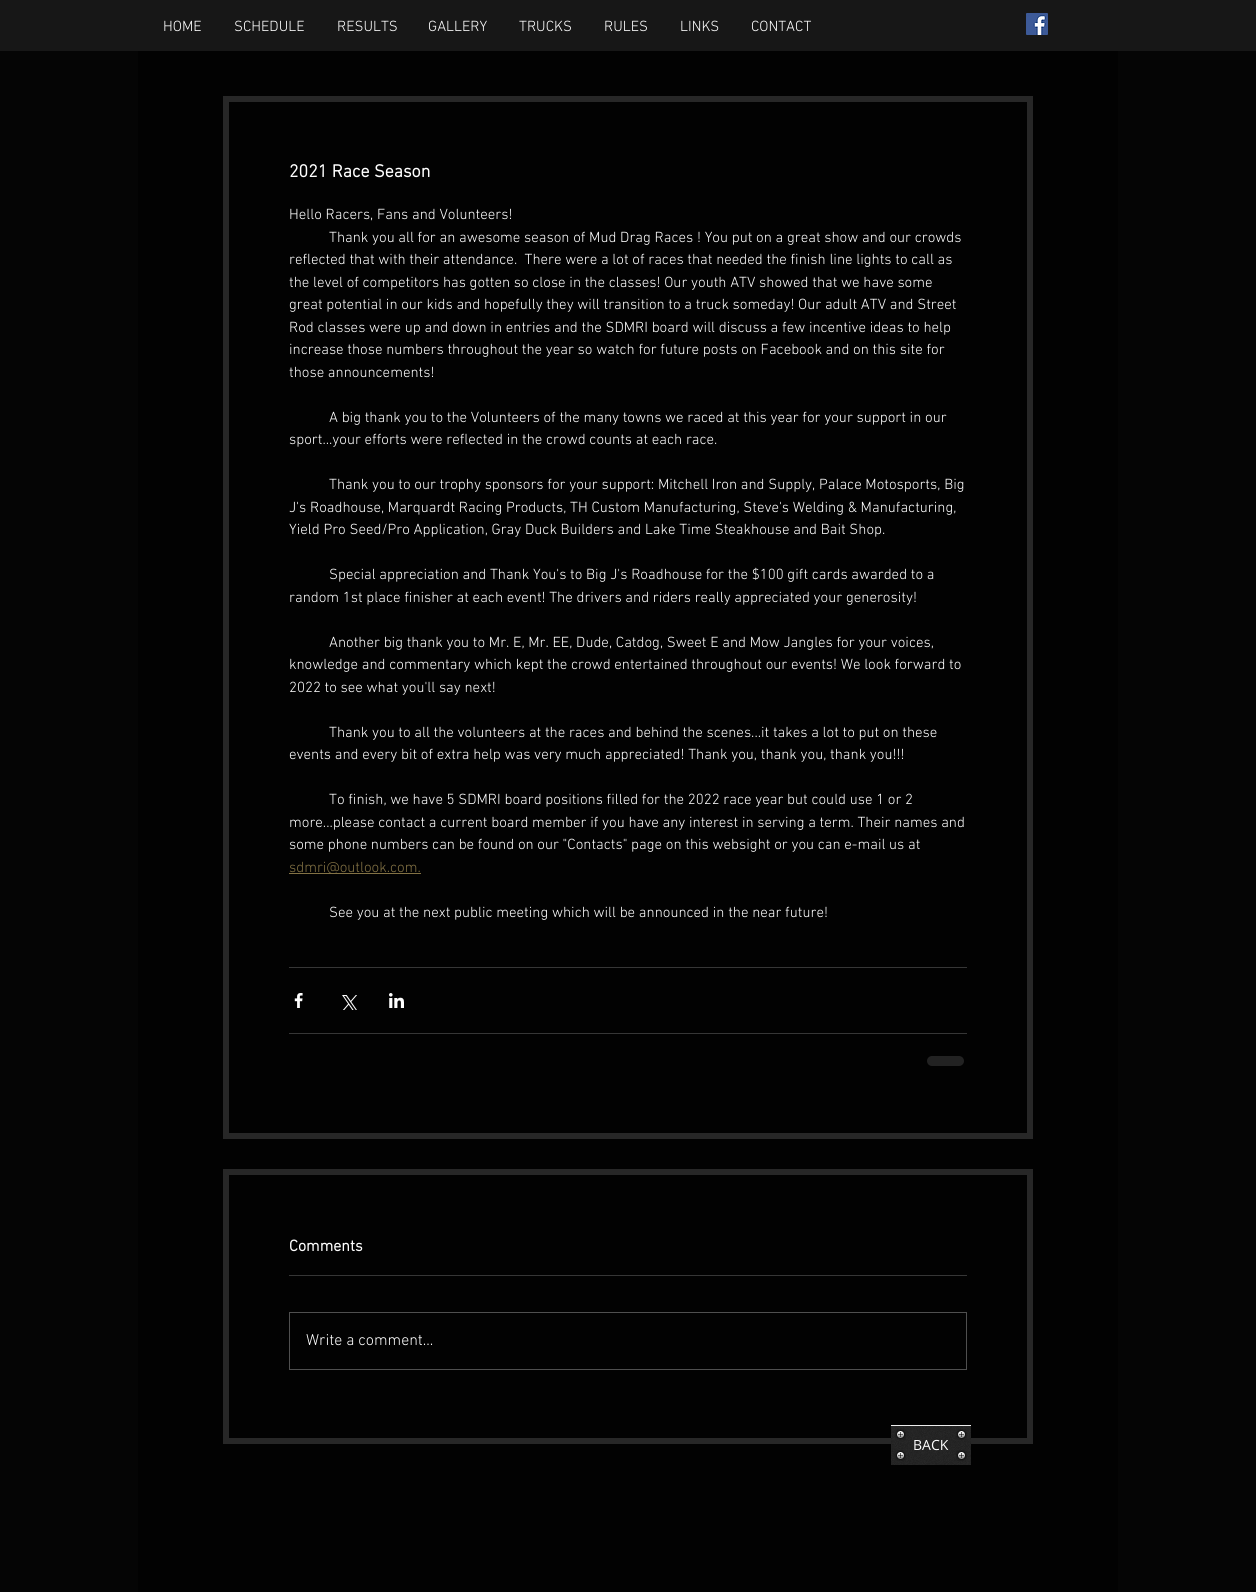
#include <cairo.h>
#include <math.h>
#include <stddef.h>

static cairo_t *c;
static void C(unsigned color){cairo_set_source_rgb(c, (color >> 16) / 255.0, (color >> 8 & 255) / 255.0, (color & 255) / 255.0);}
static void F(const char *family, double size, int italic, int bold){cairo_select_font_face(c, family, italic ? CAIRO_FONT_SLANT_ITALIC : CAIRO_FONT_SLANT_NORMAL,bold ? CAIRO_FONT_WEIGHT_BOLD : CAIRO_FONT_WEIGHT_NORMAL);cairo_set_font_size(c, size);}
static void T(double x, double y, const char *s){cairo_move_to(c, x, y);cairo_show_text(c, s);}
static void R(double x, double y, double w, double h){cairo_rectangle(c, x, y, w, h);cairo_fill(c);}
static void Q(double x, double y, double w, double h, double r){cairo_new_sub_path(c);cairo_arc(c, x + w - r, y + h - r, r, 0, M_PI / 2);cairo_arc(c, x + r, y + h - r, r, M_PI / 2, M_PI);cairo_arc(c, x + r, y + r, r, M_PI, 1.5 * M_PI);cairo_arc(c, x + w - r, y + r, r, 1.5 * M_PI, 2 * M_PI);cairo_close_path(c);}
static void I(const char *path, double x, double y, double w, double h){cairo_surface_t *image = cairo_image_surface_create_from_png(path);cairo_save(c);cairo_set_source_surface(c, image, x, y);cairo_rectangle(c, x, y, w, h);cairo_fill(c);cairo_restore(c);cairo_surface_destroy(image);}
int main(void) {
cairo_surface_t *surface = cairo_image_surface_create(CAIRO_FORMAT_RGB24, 1256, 1592);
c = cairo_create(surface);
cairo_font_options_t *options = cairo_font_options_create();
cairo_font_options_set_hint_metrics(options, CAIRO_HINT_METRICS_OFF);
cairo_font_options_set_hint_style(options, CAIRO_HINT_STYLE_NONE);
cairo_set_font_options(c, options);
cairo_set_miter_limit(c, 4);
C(0x050505);
cairo_paint(c);
C(0x171717);
R(0,0,1256,51);
F("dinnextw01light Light",15,0,0);
C(0xffffff);
T(163,31,"HOME");
T(234,31,"SCHEDULE");
T(337,31,"RESULTS");
T(428,31,"GALLERY");
T(519,31,"TRUCKS");
T(604,31,"RULES");
T(680,31,"LINKS");
T(751,31,"CONTACT");
I("1.png",1026,13,22,22);
C(0x020202);
R(138,51,980,1541);
cairo_rectangle(c,226,99,804,1037);
C(0x272727);
cairo_set_line_width(c,6);
cairo_stroke(c);
F("dinnextw01light",18,0,1);
C(0xffffff);
T(289,177,"2021 Race Season");
F("dinnextw01light Light",15,0,0);
T(289,219,"Hello Racers, Fans and Volunteers!");
T(329,242,"Thank you all for an awesome season of Mud Drag Races ! You put on a great show and our crowds");
T(289,264,"reflected that with their attendance.  There were a lot of races that needed the finish line lights to call as");
T(289,287,"the level of competitors has gotten so close in the classes! Our youth ATV showed that we have some");
T(289,309,"great potential in our kids and hopefully they will transition to a truck someday! Our adult ATV and Street");
T(289,332,"Rod classes were up and down in entries and the SDMRI board will discuss a few incentive ideas to help");
T(289,354,"increase those numbers throughout the year so watch for future posts on Facebook and on this site for");
T(289,377,"those announcements!");
T(329,422,"A big thank you to the Volunteers of the many towns we raced at this year for your support in our");
T(289,444,"sport...your efforts were reflected in the crowd counts at each race.");
T(329,489,"Thank you to our trophy sponsors for your support: Mitchell Iron and Supply, Palace Motosports, Big");
T(289,512,"J's Roadhouse, Marquardt Racing Products, TH Custom Manufacturing, Steve's Welding & Manufacturing,");
T(289,534,"Yield Pro Seed/Pro Application, Gray Duck Builders and Lake Time Steakhouse and Bait Shop.");
T(329,579,"Special appreciation and Thank You's to Big J's Roadhouse for the $100 gift cards awarded to a");
T(289,602,"random 1st place finisher at each event! The drivers and riders really appreciated your generosity!");
T(329,647,"Another big thank you to Mr. E, Mr. EE, Dude, Catdog, Sweet E and Mow Jangles for your voices,");
T(289,669,"knowledge and commentary which kept the crowd entertained throughout our events! We look forward to");
T(289,692,"2022 to see what you'll say next!");
T(329,737,"Thank you to all the volunteers at the races and behind the scenes...it takes a lot to put on these");
T(289,759,"events and every bit of extra help was very much appreciated! Thank you, thank you, thank you!!!");
T(329,804,"To finish, we have 5 SDMRI board positions filled for the 2022 race year but could use 1 or 2");
T(289,827,"more...please contact a current board member if you have any interest in serving a term. Their names and");
T(289,849,"some phone numbers can be found on our \"Contacts\" page on this websight or you can e-mail us at");
C(0x837244);
R(289,873,132,1);
T(289,872,"sdmri@outlook.com.");
C(0xffffff);
T(329,917,"See you at the next public meeting which will be announced in the near future!");
C(0x363636);
R(289,967,678,1);
I("2.png",294,993,9,15);
I("3.png",342,995,15,15);
I("4.png",389,993,15,15);
R(289,1033,678,1);
C(0x222222);
Q(927,1056,37,10,5);
cairo_fill(c);
cairo_rectangle(c,226,1172,804,269);
C(0x272727);
cairo_stroke(c);
F("dinnextw01light",16,0,1);
C(0xffffff);
T(289,1251,"Comments");
C(0x363636);
R(289,1275,678,1);
cairo_rectangle(c,289.5,1312.5,677,57);
C(0x4f4f4f);
cairo_set_line_width(c,1);
cairo_stroke(c);
F("dinnextw01light Light",16,0,0);
C(0xffffff);
T(306,1345,"Write a comment...");
C(0x232323);
R(891,1425,80,40);
I("5.png",891,1425,80,40);
cairo_set_source_rgba(c,1,1,1,0.92);
R(891,1425,80,1);
I("6.png",895,1429,11,11);
I("7.png",956,1429,11,11);
F("Open Sans",14,0,0);
C(0xffffff);
T(913,1450,"BACK");
I("8.png",895,1450,11,11);
I("9.png",956,1450,11,11);
cairo_surface_write_to_png(surface, "o.png");
cairo_font_options_destroy(options);
cairo_destroy(c);
cairo_surface_destroy(surface);
return 0;
}
